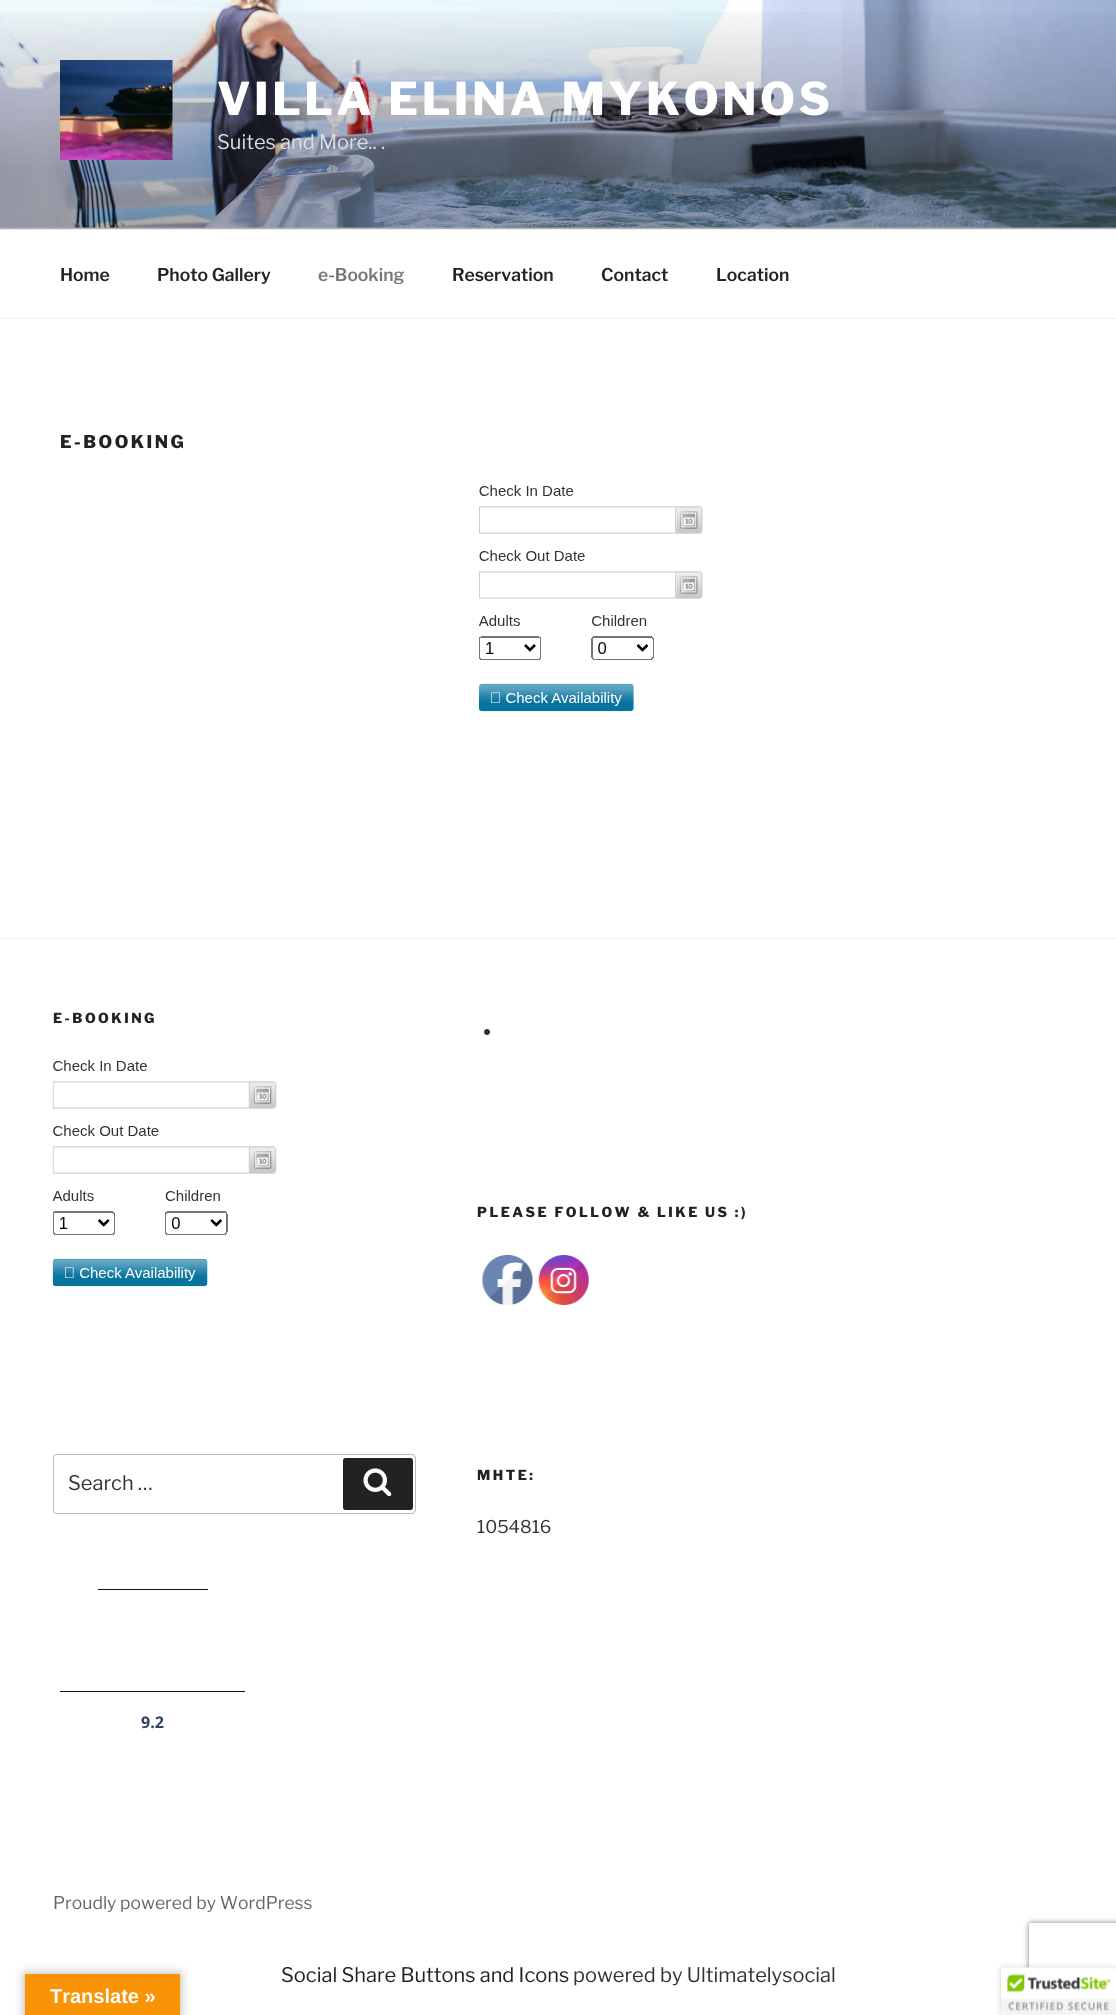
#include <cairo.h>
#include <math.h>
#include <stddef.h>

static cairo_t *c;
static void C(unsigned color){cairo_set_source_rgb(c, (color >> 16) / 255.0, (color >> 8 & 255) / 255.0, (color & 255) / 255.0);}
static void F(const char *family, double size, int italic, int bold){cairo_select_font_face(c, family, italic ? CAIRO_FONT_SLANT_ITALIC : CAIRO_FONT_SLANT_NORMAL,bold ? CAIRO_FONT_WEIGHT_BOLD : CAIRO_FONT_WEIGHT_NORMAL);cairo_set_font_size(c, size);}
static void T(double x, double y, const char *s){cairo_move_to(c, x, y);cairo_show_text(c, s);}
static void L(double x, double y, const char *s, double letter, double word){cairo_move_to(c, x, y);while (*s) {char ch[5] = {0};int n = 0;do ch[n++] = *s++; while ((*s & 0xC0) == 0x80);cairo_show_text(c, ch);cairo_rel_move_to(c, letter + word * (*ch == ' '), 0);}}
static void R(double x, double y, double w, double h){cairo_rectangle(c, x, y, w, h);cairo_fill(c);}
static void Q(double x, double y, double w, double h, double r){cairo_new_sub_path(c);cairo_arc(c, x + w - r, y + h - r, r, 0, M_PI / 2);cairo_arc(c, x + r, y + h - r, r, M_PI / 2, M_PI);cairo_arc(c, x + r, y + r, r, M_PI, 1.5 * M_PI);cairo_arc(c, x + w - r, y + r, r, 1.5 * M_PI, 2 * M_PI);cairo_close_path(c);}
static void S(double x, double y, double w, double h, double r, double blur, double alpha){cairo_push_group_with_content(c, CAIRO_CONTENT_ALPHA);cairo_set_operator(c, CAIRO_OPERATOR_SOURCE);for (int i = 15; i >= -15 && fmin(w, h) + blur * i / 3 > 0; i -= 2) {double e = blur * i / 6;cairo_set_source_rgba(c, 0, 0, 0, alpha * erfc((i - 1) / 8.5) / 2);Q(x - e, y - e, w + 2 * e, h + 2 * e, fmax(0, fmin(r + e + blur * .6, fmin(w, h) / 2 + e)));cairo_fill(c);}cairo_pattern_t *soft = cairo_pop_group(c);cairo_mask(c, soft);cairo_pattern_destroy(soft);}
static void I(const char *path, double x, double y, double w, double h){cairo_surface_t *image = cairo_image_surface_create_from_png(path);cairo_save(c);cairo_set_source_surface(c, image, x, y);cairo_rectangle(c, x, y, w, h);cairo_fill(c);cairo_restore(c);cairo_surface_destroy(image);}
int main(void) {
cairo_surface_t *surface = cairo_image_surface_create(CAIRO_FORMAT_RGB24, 1116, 2015);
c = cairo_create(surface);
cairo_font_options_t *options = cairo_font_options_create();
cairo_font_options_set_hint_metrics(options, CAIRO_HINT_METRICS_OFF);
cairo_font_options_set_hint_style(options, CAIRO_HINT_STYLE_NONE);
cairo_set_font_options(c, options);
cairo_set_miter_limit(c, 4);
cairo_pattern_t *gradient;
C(0xffffff);
cairo_paint(c);
C(0xfafafa);
R(0,227,1116,2);
I("1.png",0,0,1116,228);
gradient = cairo_pattern_create_linear(558,0,558,229);
cairo_pattern_add_color_stop_rgba(gradient,0,0,0,0,0);
cairo_pattern_add_color_stop_rgba(gradient,.75,0,0,0,.3);
cairo_pattern_add_color_stop_rgba(gradient,1,0,0,0,.3);
cairo_set_source(c,gradient);
cairo_pattern_destroy(gradient);
R(0,12,1116,217);
I("2.png",60,60,113,100);
F("Libre Franklin ExtraBold",45,0,0);
C(0xffffff);
L(217,115,"VILLA ELINA MYKONOS",3.6,0);
F("Libre Franklin",20,0,0);
C(0xdddee1);
T(217,149,"Suites and More.. .");
C(0xeeeeee);
R(0,229,1116,1);
R(0,318,1116,1);
F("Libre Franklin SemiBold",17.5,0,0);
C(0x222222);
T(60,281,"Home");
T(157,281,"Photo Gallery");
C(0x767676);
T(318,281,"e-Booking");
C(0x222222);
T(452,281,"Reservation");
T(601,281,"Contact");
T(716,281,"Location");
F("Libre Franklin ExtraBold",17.5,0,0);
L(60,448,"E-BOOKING",2.5,0);
I("3.png",479,485,224,227);
C(0xeeeeee);
R(0,938,1116,1);
F("Libre Franklin ExtraBold",13.75,0,0);
C(0x222222);
L(53,1023,"E-BOOKING",2.5,0);
I("4.png",52,1060,225,227);
Q(53.5,1454.5,362,59,3.5);
C(0xbbbbbb);
cairo_set_line_width(c,1);
cairo_stroke(c);
F("Libre Franklin",20,0,0);
C(0x333333);
T(68,1490,"Search …");
C(0x222222);
Q(343,1458,70,52,2.5);
cairo_fill(c);
I("5.png",363,1468,29,28);
C(0x0f0f0f);
R(98,1589,110,1);
R(60,1691,185,1);
F("Open Sans",16,0,1);
C(0x2d4261);
T(141,1728,"9.2");
C(0x333333);
cairo_new_path(c);
cairo_arc(c,487,1032,3,0,2 * M_PI);
cairo_fill(c);
F("Libre Franklin ExtraBold",13.75,0,0);
C(0x222222);
L(477,1217,"PLEASE FOLLOW & LIKE US :)",2.5,0);
I("6.png",482,1255,51,50);
I("7.png",538,1255,51,50);
L(477,1480,"MHTE:",2.5,0);
F("Libre Franklin",17.5,0,0);
C(0x333333);
T(477,1533,"1054816");
C(0x666666);
T(53,1909,"Proudly powered by WordPress");
cairo_save(c);
cairo_set_fill_rule(c,CAIRO_FILL_RULE_EVEN_ODD);
cairo_new_path(c);
cairo_move_to(c,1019,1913);
cairo_line_to(c,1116,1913);
cairo_line_to(c,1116,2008);
cairo_line_to(c,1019,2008);
cairo_close_path(c);
cairo_move_to(c,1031.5,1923);
cairo_line_to(c,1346.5,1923);
cairo_curve_to(c,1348,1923,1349,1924,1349,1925.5);
cairo_line_to(c,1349,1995.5);
cairo_curve_to(c,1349,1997,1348,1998,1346.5,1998);
cairo_line_to(c,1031.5,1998);
cairo_curve_to(c,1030,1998,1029,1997,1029,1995.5);
cairo_line_to(c,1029,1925.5);
cairo_curve_to(c,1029,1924,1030,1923,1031.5,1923);
cairo_close_path(c);
cairo_clip(c);
C(0x808080);
S(1029,1923,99,75,2.5,3,1);
cairo_restore(c);
F("Libre Franklin",20,0,0);
C(0x222222);
T(281,1982,"Social Share Buttons and Icons");
C(0x333333);
T(573,1982,"powered by Ultimatelysocial");
C(0x000000);
S(1001,1968,115,47,2.5,3,.2);
C(0xffffff);
cairo_new_path(c);
cairo_move_to(c,1003.5,1968);
cairo_line_to(c,1116,1968);
cairo_line_to(c,1116,2015);
cairo_line_to(c,1001,2015);
cairo_line_to(c,1001,1970.5);
cairo_curve_to(c,1001,1969,1002,1968,1003.5,1968);
cairo_close_path(c);
cairo_fill(c);
I("8.png",1001,1967,115,48);
C(0x000000);
S(25,1974,155,41,0,5.5,.3);
C(0xf89406);
R(25,1974,155,41);
F("Liberation Sans",20,0,1);
C(0xffffff);
T(50,2003,"Translate »");
cairo_surface_write_to_png(surface, "o.png");
cairo_font_options_destroy(options);
cairo_destroy(c);
cairo_surface_destroy(surface);
return 0;
}
